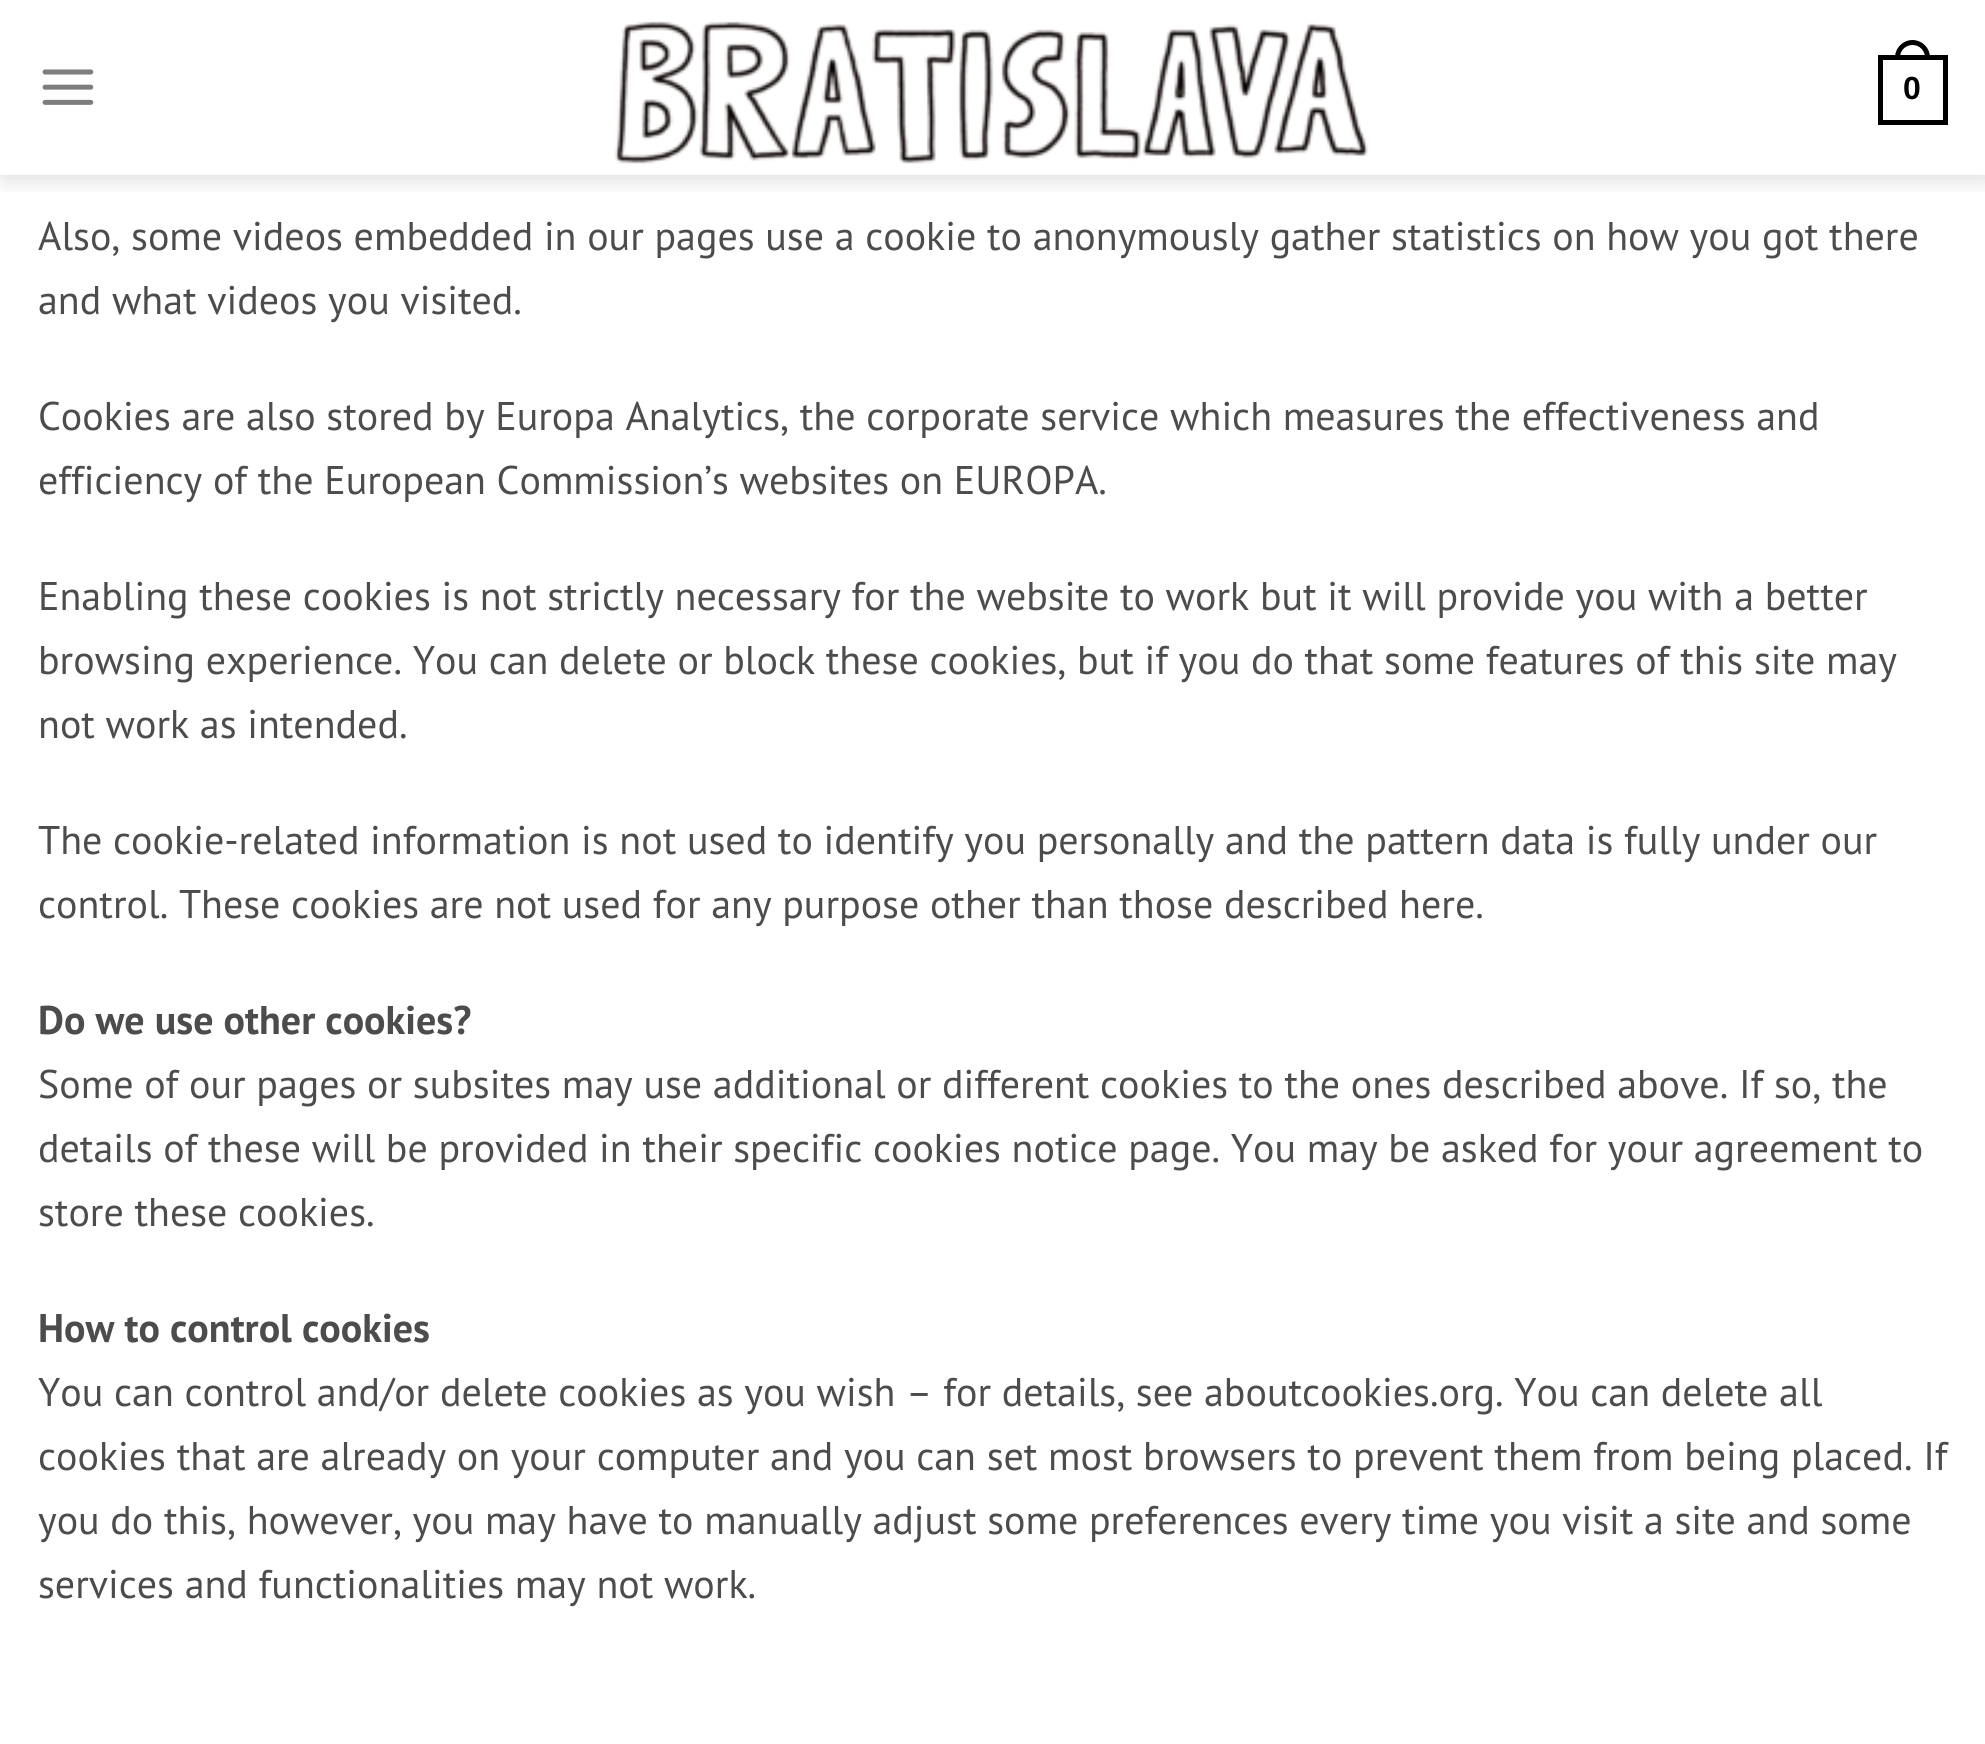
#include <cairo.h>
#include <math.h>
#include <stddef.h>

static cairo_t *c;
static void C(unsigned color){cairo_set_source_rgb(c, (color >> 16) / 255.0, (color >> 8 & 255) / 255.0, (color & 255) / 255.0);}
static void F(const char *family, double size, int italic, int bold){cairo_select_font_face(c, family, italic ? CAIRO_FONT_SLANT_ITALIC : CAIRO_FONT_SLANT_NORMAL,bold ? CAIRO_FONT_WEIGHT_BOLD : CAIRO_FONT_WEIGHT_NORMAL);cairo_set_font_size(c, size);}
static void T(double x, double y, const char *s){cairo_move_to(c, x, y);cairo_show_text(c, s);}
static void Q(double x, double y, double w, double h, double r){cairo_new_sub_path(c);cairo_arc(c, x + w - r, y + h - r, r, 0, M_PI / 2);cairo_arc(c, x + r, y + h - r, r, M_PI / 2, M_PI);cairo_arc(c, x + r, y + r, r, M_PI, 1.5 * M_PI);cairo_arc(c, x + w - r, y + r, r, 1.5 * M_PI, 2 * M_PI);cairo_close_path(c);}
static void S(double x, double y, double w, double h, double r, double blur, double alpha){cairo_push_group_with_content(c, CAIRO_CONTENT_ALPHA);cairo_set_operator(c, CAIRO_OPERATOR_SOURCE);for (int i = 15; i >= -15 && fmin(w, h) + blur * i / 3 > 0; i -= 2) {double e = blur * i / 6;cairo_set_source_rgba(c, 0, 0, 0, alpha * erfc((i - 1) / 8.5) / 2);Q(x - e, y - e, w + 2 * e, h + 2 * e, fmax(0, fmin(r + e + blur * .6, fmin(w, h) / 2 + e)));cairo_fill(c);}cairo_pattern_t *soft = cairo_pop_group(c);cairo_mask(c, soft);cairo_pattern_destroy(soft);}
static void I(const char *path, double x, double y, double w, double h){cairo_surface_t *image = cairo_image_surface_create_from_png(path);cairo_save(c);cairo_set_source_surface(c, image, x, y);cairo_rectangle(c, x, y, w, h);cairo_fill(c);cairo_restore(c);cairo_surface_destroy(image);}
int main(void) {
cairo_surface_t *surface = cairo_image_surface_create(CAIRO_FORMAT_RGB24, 1985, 1744);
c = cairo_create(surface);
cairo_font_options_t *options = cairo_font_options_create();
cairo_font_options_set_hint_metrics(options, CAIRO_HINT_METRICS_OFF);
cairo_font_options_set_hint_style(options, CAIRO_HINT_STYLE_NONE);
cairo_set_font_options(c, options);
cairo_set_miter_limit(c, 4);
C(0xffffff);
cairo_paint(c);
cairo_save(c);
cairo_rectangle(c,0,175,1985,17);
cairo_clip(c);
C(0x000000);
S(3,3,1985,175,0,12.5,.15);
cairo_restore(c);
I("1.png",42,69,52,36);
I("2.png",614,21,754,143);
cairo_rectangle(c,1880.5,57.5,65,65);
C(0x000000);
cairo_set_line_width(c,5);
cairo_stroke(c);
cairo_set_fill_rule(c,CAIRO_FILL_RULE_EVEN_ODD);
cairo_new_path(c);
cairo_move_to(c,1912.5,40);
cairo_curve_to(c,1922,40,1930,48,1930,57.5);
cairo_line_to(c,1930,60);
cairo_line_to(c,1895,60);
cairo_line_to(c,1895,57.5);
cairo_curve_to(c,1895,48,1903,40,1912.5,40);
cairo_close_path(c);
cairo_move_to(c,1912.5,45);
cairo_curve_to(c,1919.5,45,1925,50.5,1925,57.5);
cairo_line_to(c,1925,60);
cairo_line_to(c,1900,60);
cairo_line_to(c,1900,57.5);
cairo_curve_to(c,1900,50.5,1905.5,45,1912.5,45);
cairo_close_path(c);
cairo_fill(c);
F("Liberation Sans",32,0,1);
T(1903,99,"0");
F("PT Sans",40,0,0);
C(0x4c4c4c);
T(38,250,"Also, some videos embedded in our pages use a cookie to anonymously gather statistics on how you got there");
T(38,314,"and what videos you visited.");
T(38,430,"Cookies are also stored by Europa Analytics, the corporate service which measures the effectiveness and");
T(38,494,"efficiency of the European Commission’s websites on EUROPA.");
T(38,610,"Enabling these cookies is not strictly necessary for the website to work but it will provide you with a better");
T(38,674,"browsing experience. You can delete or block these cookies, but if you do that some features of this site may");
T(38,738,"not work as intended.");
T(38,854,"The cookie-related information is not used to identify you personally and the pattern data is fully under our");
T(38,918,"control. These cookies are not used for any purpose other than those described here.");
F("PT Sans",40,0,1);
T(38,1034,"Do we use other cookies?");
F("PT Sans",40,0,0);
T(38,1098,"Some of our pages or subsites may use additional or different cookies to the ones described above. If so, the");
T(38,1162,"details of these will be provided in their specific cookies notice page. You may be asked for your agreement to");
T(38,1226,"store these cookies.");
F("PT Sans",40,0,1);
T(38,1342,"How to control cookies");
F("PT Sans",40,0,0);
T(38,1406,"You can control and/or delete cookies as you wish – for details, see aboutcookies.org. You can delete all");
T(38,1470,"cookies that are already on your computer and you can set most browsers to prevent them from being placed. If");
T(38,1534,"you do this, however, you may have to manually adjust some preferences every time you visit a site and some");
T(38,1598,"services and functionalities may not work.");
cairo_surface_write_to_png(surface, "o.png");
cairo_font_options_destroy(options);
cairo_destroy(c);
cairo_surface_destroy(surface);
return 0;
}
